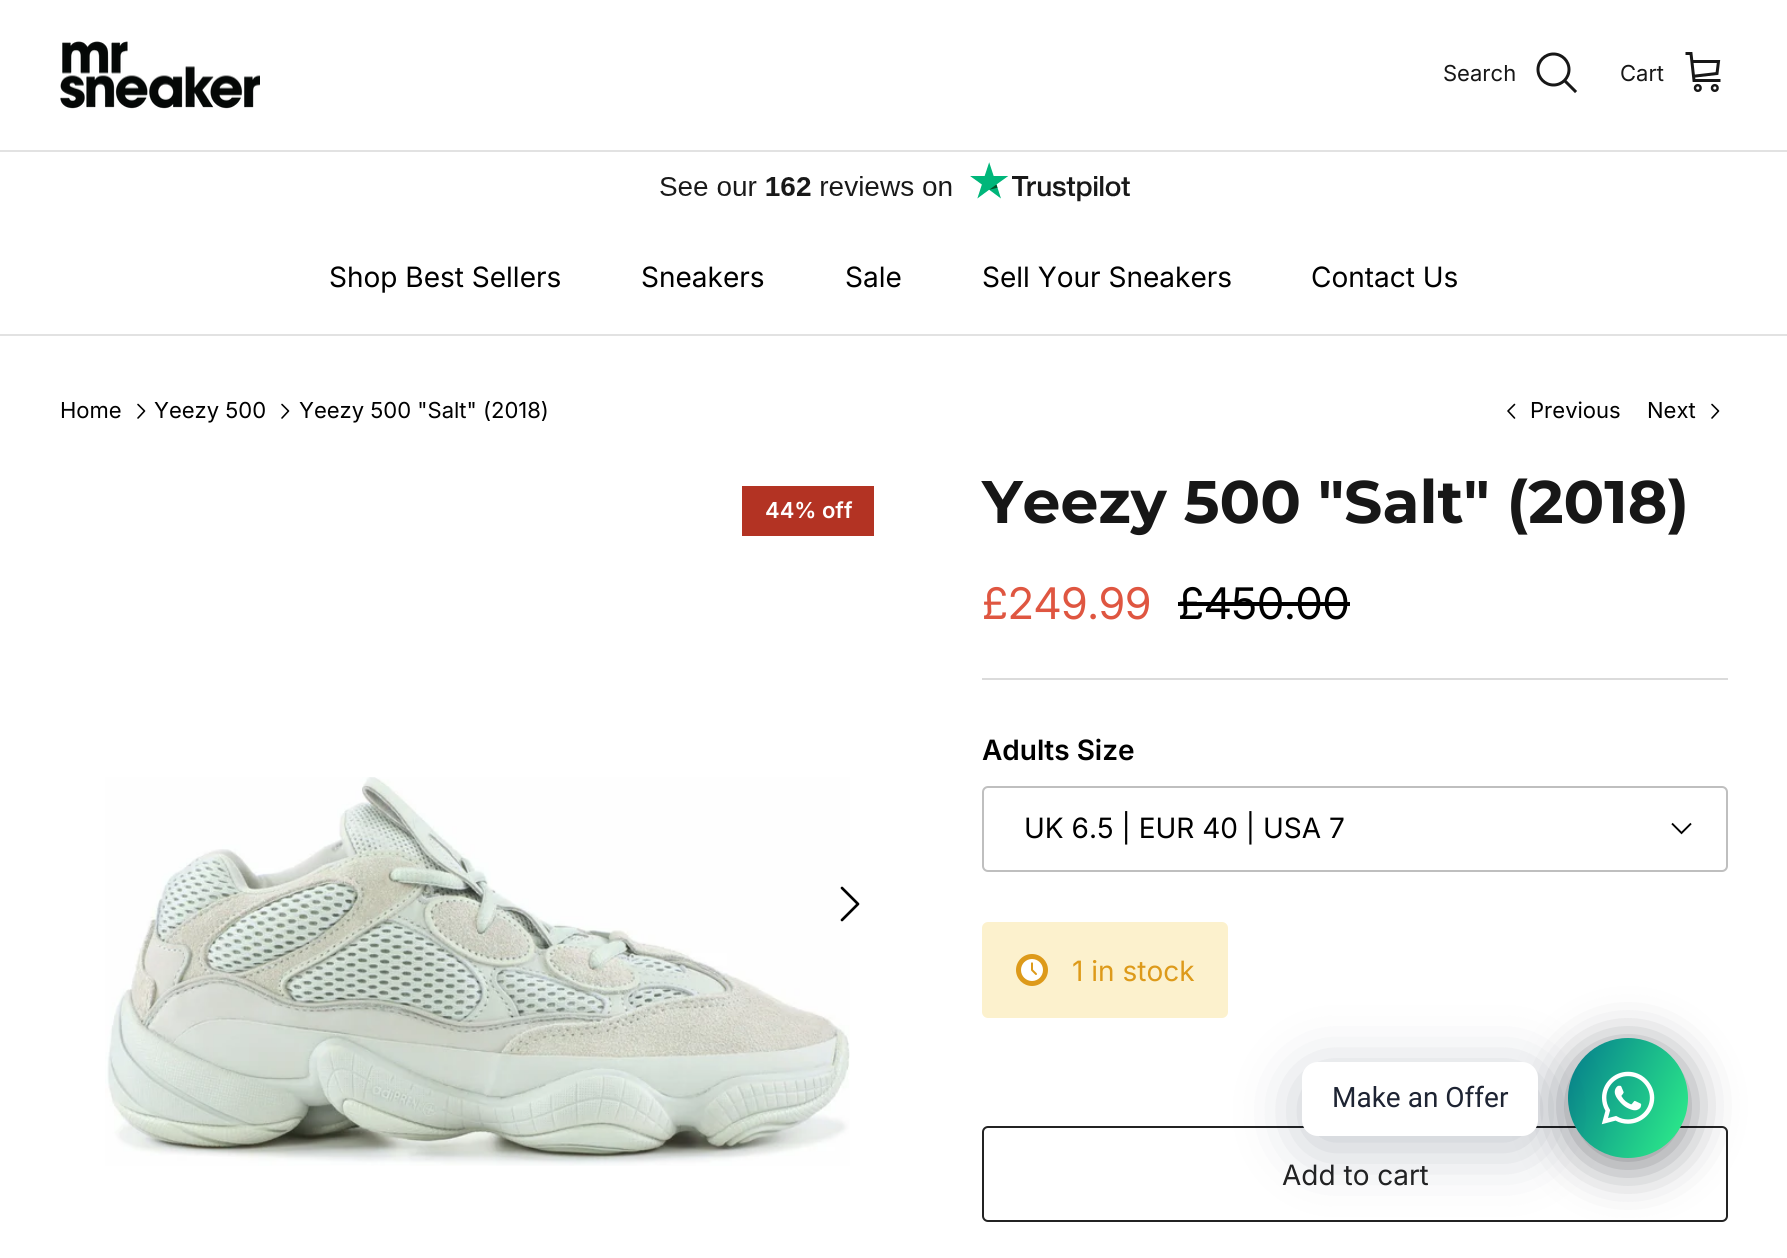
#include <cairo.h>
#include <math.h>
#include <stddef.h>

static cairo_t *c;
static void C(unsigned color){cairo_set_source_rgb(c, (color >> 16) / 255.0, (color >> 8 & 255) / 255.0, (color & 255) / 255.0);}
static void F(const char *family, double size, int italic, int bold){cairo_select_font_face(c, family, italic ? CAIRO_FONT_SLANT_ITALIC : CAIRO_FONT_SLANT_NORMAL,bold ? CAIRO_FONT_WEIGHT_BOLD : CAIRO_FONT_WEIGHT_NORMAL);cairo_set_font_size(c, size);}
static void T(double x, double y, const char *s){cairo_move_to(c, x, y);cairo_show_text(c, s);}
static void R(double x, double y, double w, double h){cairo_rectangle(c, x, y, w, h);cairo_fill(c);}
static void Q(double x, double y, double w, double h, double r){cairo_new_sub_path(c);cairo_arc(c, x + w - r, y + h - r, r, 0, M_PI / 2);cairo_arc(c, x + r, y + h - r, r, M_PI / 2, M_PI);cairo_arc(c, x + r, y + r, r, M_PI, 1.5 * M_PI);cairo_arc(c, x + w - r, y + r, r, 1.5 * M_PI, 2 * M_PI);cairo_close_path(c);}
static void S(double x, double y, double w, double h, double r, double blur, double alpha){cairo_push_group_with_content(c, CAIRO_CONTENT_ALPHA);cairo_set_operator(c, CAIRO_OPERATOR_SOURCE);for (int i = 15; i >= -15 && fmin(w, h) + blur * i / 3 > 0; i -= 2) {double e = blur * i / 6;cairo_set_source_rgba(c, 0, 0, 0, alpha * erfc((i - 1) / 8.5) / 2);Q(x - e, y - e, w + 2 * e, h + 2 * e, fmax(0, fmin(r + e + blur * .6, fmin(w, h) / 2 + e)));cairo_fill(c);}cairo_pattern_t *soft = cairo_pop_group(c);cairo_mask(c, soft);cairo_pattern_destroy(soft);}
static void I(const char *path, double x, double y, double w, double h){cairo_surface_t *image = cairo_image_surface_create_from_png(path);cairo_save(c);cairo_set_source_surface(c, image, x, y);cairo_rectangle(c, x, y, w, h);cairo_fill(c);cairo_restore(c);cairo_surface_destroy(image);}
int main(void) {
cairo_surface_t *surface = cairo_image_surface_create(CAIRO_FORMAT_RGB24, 1787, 1258);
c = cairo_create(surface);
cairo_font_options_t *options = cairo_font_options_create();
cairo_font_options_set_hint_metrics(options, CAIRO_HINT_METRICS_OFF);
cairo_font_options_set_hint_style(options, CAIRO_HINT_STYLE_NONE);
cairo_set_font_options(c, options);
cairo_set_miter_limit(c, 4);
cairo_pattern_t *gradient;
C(0xffffff);
cairo_paint(c);
C(0xe2e2e2);
R(0,150,1787,2);
I("1.png",60,41,200,68);
F("Inter",22,0,0);
C(0x171717);
T(1443,81,"Search");
cairo_new_path(c);
cairo_arc(c,1553.5,69.5,15.5,0,2 * M_PI);
cairo_set_line_width(c,3);
cairo_stroke(c);
cairo_new_path(c);
cairo_move_to(c,1566,82);
cairo_line_to(c,1575,91);
cairo_set_line_cap(c,CAIRO_LINE_CAP_SQUARE);
cairo_stroke(c);
T(1620,81,"Cart");
cairo_new_path(c);
cairo_move_to(c,1687,53.5);
cairo_line_to(c,1691,53.5);
cairo_line_to(c,1694,80.5);
cairo_line_to(c,1719,80.5);
cairo_move_to(c,1692.5,61.5);
cairo_line_to(c,1718.5,61.5);
cairo_line_to(c,1717,73.5);
cairo_line_to(c,1695.5,76);
cairo_stroke(c);
cairo_arc(c,1697.8,88,2.8,0,2 * M_PI);
cairo_set_line_width(c,2.5);
cairo_set_line_cap(c,CAIRO_LINE_CAP_BUTT);
cairo_stroke(c);
cairo_arc(c,1714.8,88,2.8,0,2 * M_PI);
cairo_stroke(c);
I("2.png",660,162,470,40);
C(0xe2e2e2);
R(0,334,1787,2);
F("Inter",28,0,0);
C(0x000000);
T(329,287,"Shop Best Sellers");
T(641,287,"Sneakers");
T(845,287,"Sale");
T(982,287,"Sell Your Sneakers");
T(1311,287,"Contact Us");
F("Inter",22,0,0);
T(60,418,"Home");
cairo_new_path(c);
cairo_move_to(c,138,418);
cairo_line_to(c,144.5,411);
cairo_line_to(c,138,404.5);
cairo_set_line_width(c,1.6);
cairo_set_line_cap(c,CAIRO_LINE_CAP_ROUND);
cairo_set_line_join(c,CAIRO_LINE_JOIN_ROUND);
cairo_stroke(c);
T(154,418,"Yeezy 500");
cairo_new_path(c);
cairo_move_to(c,282,418);
cairo_line_to(c,288.5,411);
cairo_line_to(c,282,404.5);
cairo_stroke(c);
T(299,418,"Yeezy 500 \"Salt\" (2018)");
cairo_new_path(c);
cairo_move_to(c,1514.5,418);
cairo_line_to(c,1508,411);
cairo_line_to(c,1514.5,404.5);
cairo_stroke(c);
T(1530,418,"Previous");
T(1647,418,"Next");
cairo_new_path(c);
cairo_move_to(c,1712,418);
cairo_line_to(c,1718.5,411);
cairo_line_to(c,1712,404.5);
cairo_stroke(c);
C(0xb33323);
R(742,486,132,50);
F("Inter SemiBold",22,0,0);
C(0xffffff);
T(765,518,"44% off");
I("3.png",105,777,745,389);
cairo_new_path(c);
cairo_move_to(c,842,920);
cairo_line_to(c,858,904);
cairo_line_to(c,842,888);
C(0x000000);
cairo_set_line_width(c,2.7);
cairo_stroke(c);
F("Montserrat",60,0,1);
C(0x171717);
T(982,523,"Yeezy 500 \"Salt\" (2018)");
F("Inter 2",43.5,0,0);
C(0xdf5641);
T(982,619,"£249.99");
C(0x000000);
T(1178,619,"£450.00");
R(1178,602,172,4);
C(0xdbdbdb);
R(982,678,746,2);
F("Inter SemiBold",28,0,0);
C(0x000000);
T(982,760,"Adults Size");
Q(983,787,744,84,5);
C(0xbfbfbf);
cairo_set_line_width(c,2);
cairo_set_line_cap(c,CAIRO_LINE_CAP_BUTT);
cairo_set_line_join(c,CAIRO_LINE_JOIN_MITER);
cairo_stroke(c);
F("Inter",28,0,0);
C(0x000000);
T(1024,838,"UK 6.5 | EUR 40 | USA 7");
cairo_new_path(c);
cairo_move_to(c,1691,823.5);
cairo_line_to(c,1681.5,833);
cairo_line_to(c,1672,823.5);
cairo_set_line_width(c,1.9);
cairo_stroke(c);
C(0xfcf1cd);
Q(982,922,246,96,6);
cairo_fill(c);
C(0xdd9a1a);
cairo_arc(c,1032,970,16,0,2 * M_PI);
cairo_fill(c);
I("4.png",1021,959,22,22);
T(1072,981,"1 in stock");
Q(983,1127,744,94,5);
C(0x232323);
cairo_set_line_width(c,2);
cairo_stroke(c);
T(1282,1185,"Add to cart");
C(0x020610);
S(1568,1046,120,120,60,24,.5);
gradient = cairo_pattern_create_linear(1556,1064,1700,1132);
cairo_pattern_add_color_stop_rgba(gradient,0,0.016,0.486,0.553,1);
cairo_pattern_add_color_stop_rgba(gradient,1,0.184,0.949,0.537,1);
cairo_set_source(c,gradient);
cairo_pattern_destroy(gradient);
cairo_arc(c,1628,1098,60,0,2 * M_PI);
cairo_fill(c);
C(0x00122e);
S(1302,1074,236,74,16,32,.24);
C(0xffffff);
Q(1302,1062,236,74,16);
cairo_fill(c);
F("Roboto",28,0,0);
C(0x1e2433);
T(1332,1107,"Make an Offer");
I("5.png",1601,1071,54,54);
cairo_surface_write_to_png(surface, "o.png");
cairo_font_options_destroy(options);
cairo_destroy(c);
cairo_surface_destroy(surface);
return 0;
}
